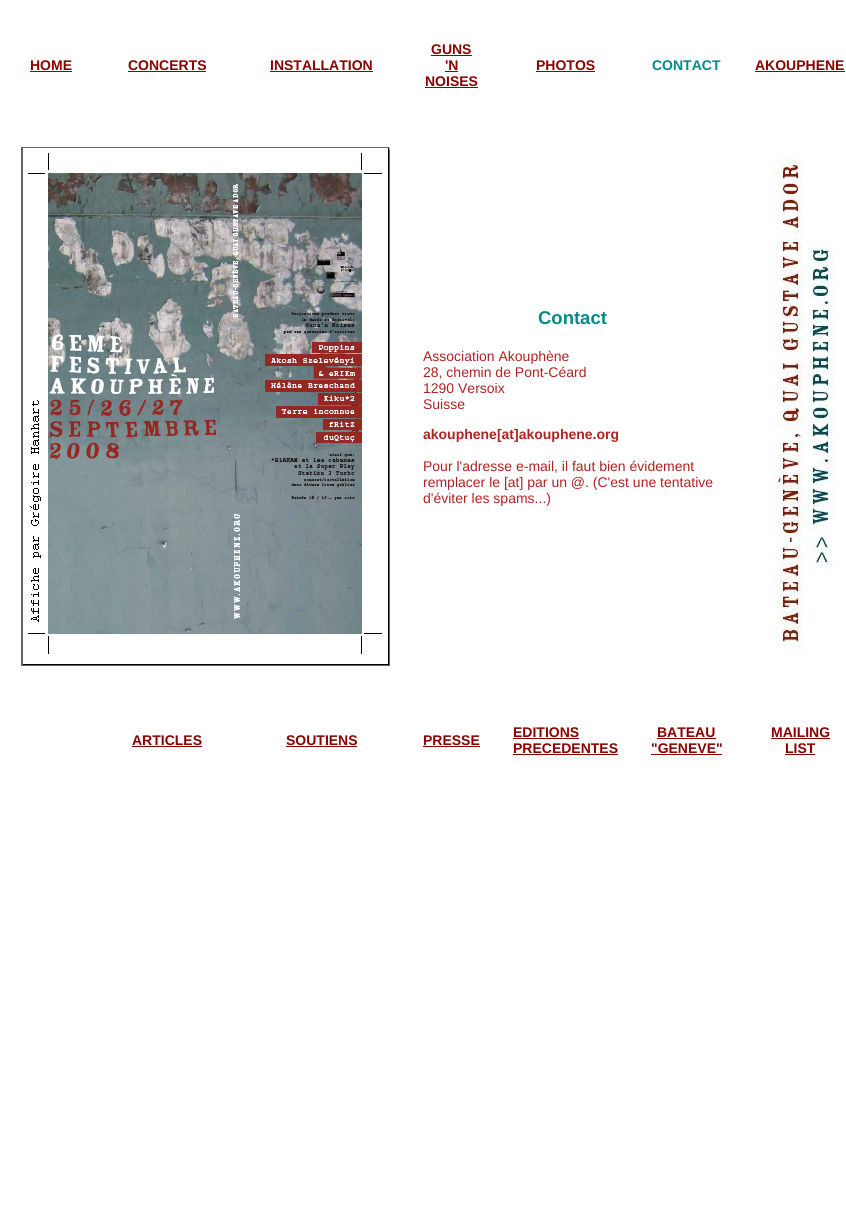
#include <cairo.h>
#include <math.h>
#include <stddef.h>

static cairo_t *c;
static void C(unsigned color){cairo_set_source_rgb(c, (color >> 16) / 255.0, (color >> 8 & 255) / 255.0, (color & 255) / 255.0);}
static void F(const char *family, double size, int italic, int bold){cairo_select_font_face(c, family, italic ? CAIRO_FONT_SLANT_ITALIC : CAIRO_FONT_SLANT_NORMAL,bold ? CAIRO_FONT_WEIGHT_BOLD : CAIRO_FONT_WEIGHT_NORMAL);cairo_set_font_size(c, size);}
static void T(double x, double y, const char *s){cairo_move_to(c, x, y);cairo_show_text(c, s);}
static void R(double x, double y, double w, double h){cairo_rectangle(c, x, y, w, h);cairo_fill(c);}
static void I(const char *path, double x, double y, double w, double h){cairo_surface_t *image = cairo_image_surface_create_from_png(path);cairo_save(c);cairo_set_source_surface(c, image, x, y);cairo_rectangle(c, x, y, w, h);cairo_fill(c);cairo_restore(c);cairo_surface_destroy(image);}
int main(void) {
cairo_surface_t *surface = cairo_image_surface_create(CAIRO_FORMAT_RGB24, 846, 1223);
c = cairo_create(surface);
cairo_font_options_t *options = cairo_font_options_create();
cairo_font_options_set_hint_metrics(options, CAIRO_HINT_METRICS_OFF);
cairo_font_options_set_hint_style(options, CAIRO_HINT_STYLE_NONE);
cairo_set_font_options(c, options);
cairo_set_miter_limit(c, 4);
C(0xffffff);
cairo_paint(c);
F("Liberation Sans",14,0,1);
C(0x8b0000);
T(30,70,"HOME");
R(30,71,42,1);
T(128,70,"CONCERTS");
R(128,71,78,1);
T(270,70,"INSTALLATION");
R(270,71,103,1);
T(431,54,"GUNS");
R(431,55,41,1);
T(445,70,"'N");
R(445,71,13,1);
T(425,86,"NOISES");
R(425,87,53,1);
T(536,70,"PHOTOS");
R(536,71,59,1);
C(0x008b8b);
T(652,70,"CONTACT");
C(0x8b0000);
T(755,70,"AKOUPHENE");
R(755,71,90,1);
I("1.png",21,147,369,519);
F("Liberation Sans",18.5,0,1);
C(0x008b8b);
T(538,324,"Contact");
F("Liberation Sans",14,0,0);
C(0xb22222);
T(423,361,"Association Akouphène");
T(423,377,"28, chemin de Pont-Céard");
T(423,393,"1290 Versoix");
T(423,409,"Suisse");
F("Liberation Sans",14,0,1);
T(423,439,"akouphene[at]akouphene.org");
F("Liberation Sans",14,0,0);
T(423,471,"Pour l'adresse e-mail, il faut bien évidement");
T(423,487,"remplacer le [at] par un @. (C'est une tentative");
T(423,503,"d'éviter les spams...)");
I("2.png",770,154,65,496);
F("Liberation Sans",14,0,1);
C(0x8b0000);
T(132,745,"ARTICLES");
R(132,746,70,1);
T(286,745,"SOUTIENS");
R(286,746,71,1);
T(423,745,"PRESSE");
R(423,746,57,1);
T(513,737,"EDITIONS");
R(513,738,66,1);
T(513,753,"PRECEDENTES");
R(513,754,105,1);
T(657,737,"BATEAU");
R(657,738,59,1);
T(651,753,"\"GENEVE\"");
R(651,754,71,1);
T(771,737,"MAILING");
R(771,738,59,1);
T(785,753,"LIST");
R(785,754,30,1);
cairo_surface_write_to_png(surface, "o.png");
cairo_font_options_destroy(options);
cairo_destroy(c);
cairo_surface_destroy(surface);
return 0;
}
